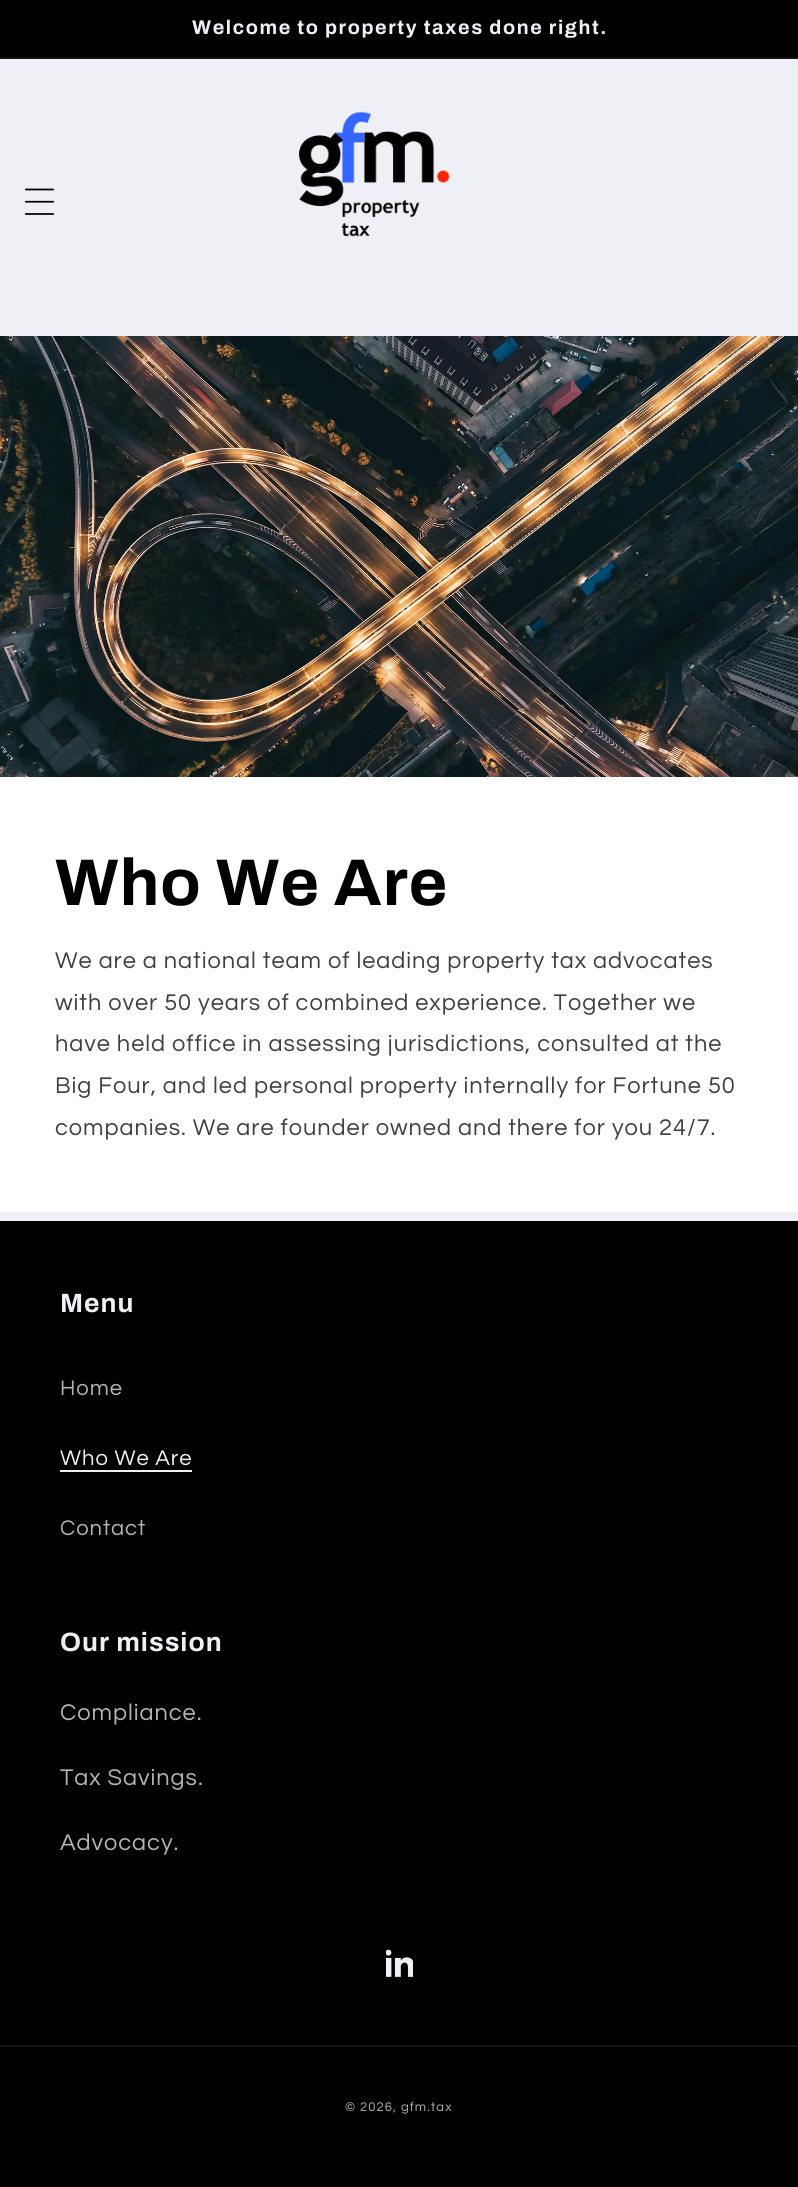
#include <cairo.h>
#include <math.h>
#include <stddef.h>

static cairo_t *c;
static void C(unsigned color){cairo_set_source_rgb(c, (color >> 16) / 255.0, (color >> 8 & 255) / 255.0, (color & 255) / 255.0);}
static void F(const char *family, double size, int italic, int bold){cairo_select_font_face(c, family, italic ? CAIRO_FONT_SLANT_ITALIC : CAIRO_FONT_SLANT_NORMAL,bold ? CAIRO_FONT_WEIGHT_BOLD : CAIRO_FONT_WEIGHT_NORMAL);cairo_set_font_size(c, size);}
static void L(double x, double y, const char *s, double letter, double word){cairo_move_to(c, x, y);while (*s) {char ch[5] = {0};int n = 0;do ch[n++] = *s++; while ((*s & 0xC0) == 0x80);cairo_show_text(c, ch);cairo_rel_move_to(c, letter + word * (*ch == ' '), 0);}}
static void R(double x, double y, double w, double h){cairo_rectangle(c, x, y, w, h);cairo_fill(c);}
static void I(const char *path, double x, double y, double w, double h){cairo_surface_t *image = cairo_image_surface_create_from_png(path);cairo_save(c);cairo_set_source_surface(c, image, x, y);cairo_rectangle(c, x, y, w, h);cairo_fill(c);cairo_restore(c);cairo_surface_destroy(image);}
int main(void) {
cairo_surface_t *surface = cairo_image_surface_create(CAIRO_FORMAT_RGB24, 798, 2187);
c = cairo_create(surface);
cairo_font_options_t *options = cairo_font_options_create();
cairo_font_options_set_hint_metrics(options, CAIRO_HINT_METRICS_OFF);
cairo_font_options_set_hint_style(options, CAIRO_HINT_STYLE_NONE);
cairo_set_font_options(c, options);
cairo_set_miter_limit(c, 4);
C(0xeff0f5);
cairo_paint(c);
C(0x000000);
R(0,0,798,57);
C(0x131314);
R(0,57,798,2);
F("Archivo",19.8,0,1);
C(0xeff0f5);
L(192,34,"Welcome to property taxes done right.",1.6,0);
I("1.png",24,188,31,27);
I("2.png",299,111,151,126);
I("3.png",0,336,798,441);
C(0xffffff);
R(0,777,798,435);
F("Archivo",66,0,1);
C(0x000000);
L(55,905,"Who We Are",1,0);
F("Questrial",23.6,0,0);
C(0x404040);
L(55,968,"We are a national team of leading property tax advocates",.95,0);
L(55,1010,"with over 50 years of combined experience. Together we",.95,0);
L(55,1051,"have held office in assessing jurisdictions, consulted at the",.95,0);
L(55,1093,"Big Four, and led personal property internally for Fortune 50",.95,0);
L(55,1135,"companies. We are founder owned and there for you 24/7.",.95,0);
C(0x000000);
R(0,1221,798,966);
F("Archivo",26.5,0,1);
C(0xeff0f5);
L(60,1312,"Menu",1,0);
F("Questrial",22,0,0);
C(0xb3b4b8);
L(60,1395,"Home",.95,0);
C(0xeff0f5);
L(60,1465,"Who We Are",.95,0);
R(60,1470,132,2);
C(0xb3b4b8);
L(60,1535,"Contact",.95,0);
F("Archivo",26.5,0,1);
C(0xeff0f5);
L(60,1651,"Our mission",1,0);
F("Questrial",23.6,0,0);
C(0xb3b4b8);
L(60,1720,"Compliance.",.95,0);
L(60,1785,"Tax Savings.",.95,0);
L(60,1850,"Advocacy.",.95,0);
I("4.png",386,1949,27,28);
C(0x131314);
R(0,2045,798,2);
F("Questrial",13,0,0);
C(0xb3b4b8);
L(345,2111,"© 2026, gfm.tax",1.1,0);
cairo_surface_write_to_png(surface, "o.png");
cairo_font_options_destroy(options);
cairo_destroy(c);
cairo_surface_destroy(surface);
return 0;
}
